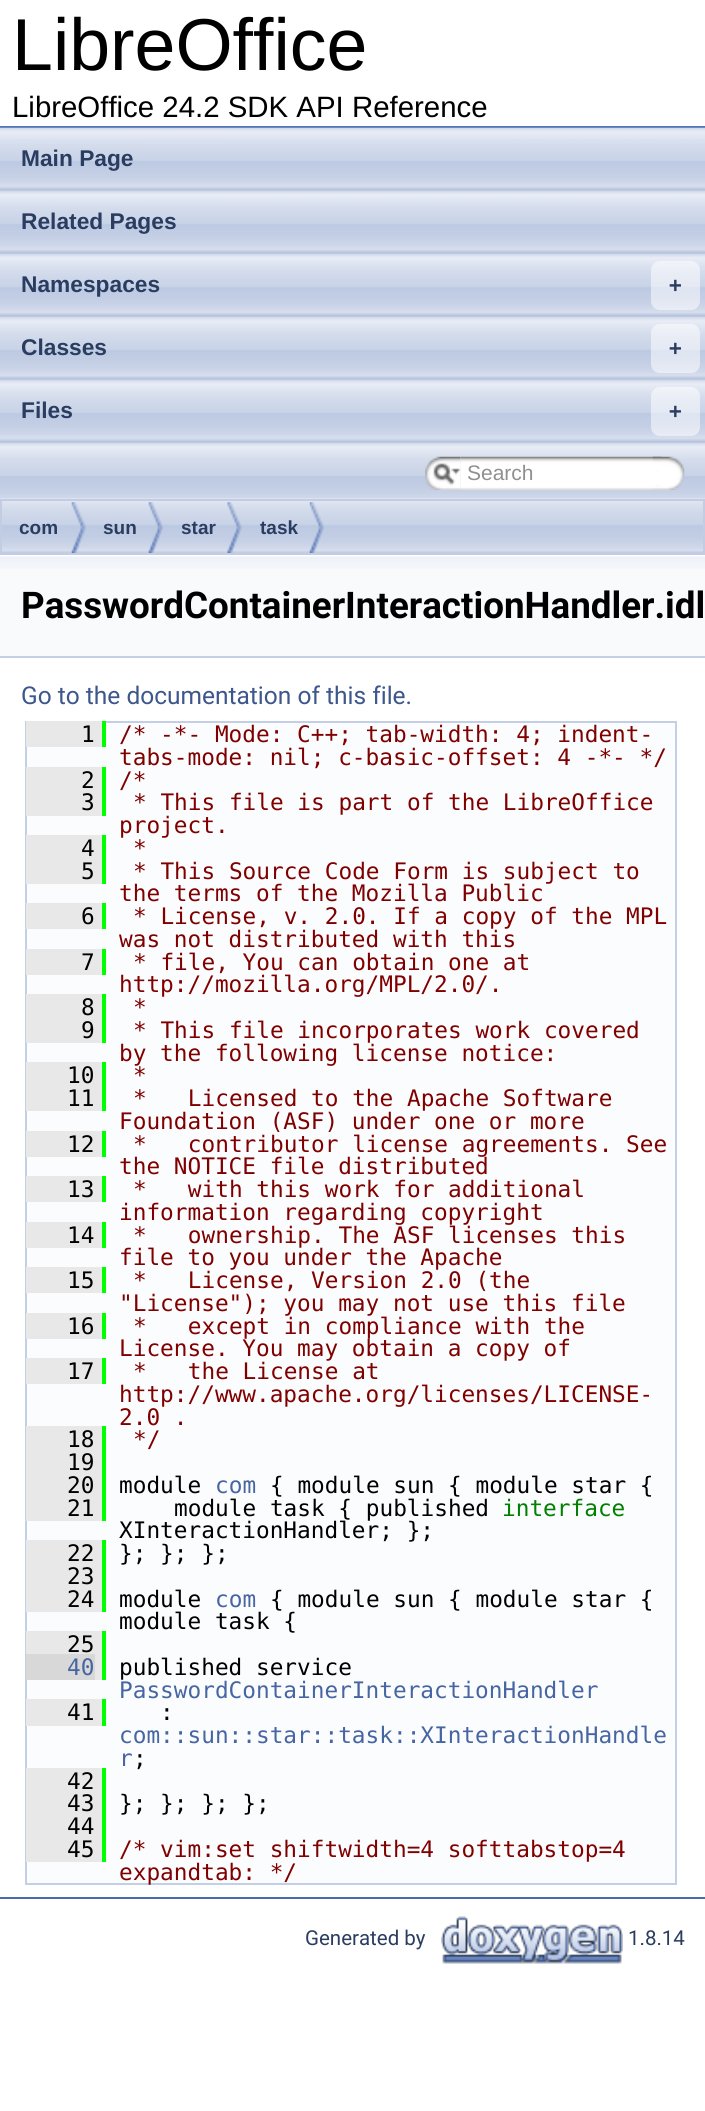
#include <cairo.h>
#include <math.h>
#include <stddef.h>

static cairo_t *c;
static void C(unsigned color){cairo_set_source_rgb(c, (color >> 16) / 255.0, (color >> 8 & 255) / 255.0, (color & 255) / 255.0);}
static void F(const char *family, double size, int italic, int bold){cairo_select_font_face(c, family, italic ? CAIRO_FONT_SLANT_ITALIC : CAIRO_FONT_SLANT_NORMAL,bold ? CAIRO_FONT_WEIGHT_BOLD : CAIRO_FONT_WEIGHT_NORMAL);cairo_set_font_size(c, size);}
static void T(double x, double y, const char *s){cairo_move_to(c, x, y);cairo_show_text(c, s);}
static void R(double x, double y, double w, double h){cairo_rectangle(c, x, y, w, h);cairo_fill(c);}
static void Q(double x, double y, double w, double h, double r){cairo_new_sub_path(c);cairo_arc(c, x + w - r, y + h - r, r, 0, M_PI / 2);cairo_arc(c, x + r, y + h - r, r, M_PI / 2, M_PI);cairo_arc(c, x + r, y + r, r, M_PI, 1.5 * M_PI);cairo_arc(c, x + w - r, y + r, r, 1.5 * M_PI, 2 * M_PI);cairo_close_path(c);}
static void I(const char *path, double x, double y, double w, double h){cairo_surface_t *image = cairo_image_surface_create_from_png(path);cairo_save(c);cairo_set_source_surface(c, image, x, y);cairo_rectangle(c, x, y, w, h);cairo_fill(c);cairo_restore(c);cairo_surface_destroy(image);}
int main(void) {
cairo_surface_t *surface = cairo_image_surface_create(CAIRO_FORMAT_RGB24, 705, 2111);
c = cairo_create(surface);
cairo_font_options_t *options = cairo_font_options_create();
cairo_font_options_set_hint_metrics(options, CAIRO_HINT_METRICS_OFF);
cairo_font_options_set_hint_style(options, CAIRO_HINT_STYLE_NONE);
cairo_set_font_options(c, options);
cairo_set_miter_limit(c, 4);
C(0xffffff);
cairo_paint(c);
C(0x5373b4);
R(0,126,705,2);
F("Liberation Sans",73.5,0,0);
C(0x000000);
T(12,70,"LibreOffice");
F("Liberation Sans",29.4,0,0);
T(12,117,"LibreOffice 24.2 SDK API Reference");
I("6.png",0,498,705,55);
I("1.png",0,127,705,372);
F("Liberation Sans",22.75,0,1);
C(0x2a3d61);
T(21,166,"Main Page");
T(21,229,"Related Pages");
T(21,292,"Namespaces");
cairo_set_source_rgba(c,1,1,1,0.5);
Q(651,261,49,49,9);
cairo_fill(c);
F("DejaVu Sans Mono",21,0,1);
C(0x2a3d61);
T(669,292,"+");
F("Liberation Sans",22.75,0,1);
T(21,355,"Classes");
cairo_set_source_rgba(c,1,1,1,0.5);
Q(651,324,49,49,9);
cairo_fill(c);
F("DejaVu Sans Mono",21,0,1);
C(0x2a3d61);
T(669,355,"+");
F("Liberation Sans",22.75,0,1);
T(21,418,"Files");
cairo_set_source_rgba(c,1,1,1,0.5);
Q(651,387,49,49,9);
cairo_fill(c);
F("DejaVu Sans Mono",21,0,1);
C(0x2a3d61);
T(669,418,"+");
I("2.png",425,456,36,34);
I("3.png",433,463,28,22);
I("4.png",460,456,202,34);
F("Liberation Sans",21,0,0);
C(0x909090);
T(467,480,"Search");
I("5.png",652,456,33,34);
cairo_rectangle(c,1,500,703,54);
C(0xc2cde4);
cairo_stroke(c);
I("7.png",71,502,15,51);
F("Liberation Sans",19,0,1);
C(0x2a3d61);
T(19,534,"com");
I("7.png",148,502,15,51);
T(103,534,"sun");
I("8.png",227,502,15,51);
T(181,534,"star");
I("7.png",309,502,15,51);
T(260,534,"task");
C(0xf9fafc);
R(0,569,705,87);
I("9.png",0,555,705,14);
C(0xc4cfe5);
R(0,656,705,2);
F("Roboto",36.75,0,1);
C(0x000000);
T(21,618,"PasswordContainerInteractionHandler.idl");
F("Roboto",24.5,0,0);
C(0x3d578c);
T(21,704,"Go to the documentation of this file.");
C(0xfbfcfd);
cairo_rectangle(c,26,722,650,1162);
cairo_fill_preserve(c);
C(0xc4cfe5);
cairo_stroke(c);
C(0xe8e8e8);
R(26,721,76,26);
F("DejaVu Sans Mono",22.75,0,0);
C(0x000000);
T(81,742,"1");
C(0x00ff00);
R(102,721,4,26);
C(0x800000);
T(119,742,"/* -*- Mode: C++; tab-width: 4; indent-");
T(119,765,"tabs-mode: nil; c-basic-offset: 4 -*- */");
C(0xe8e8e8);
R(26,767,76,49);
C(0x000000);
T(81,788,"2");
C(0x00ff00);
R(102,767,4,49);
C(0x800000);
T(119,788,"/*");
C(0x000000);
T(81,810,"3");
C(0x800000);
T(133,810,"* This file is part of the LibreOffice");
T(119,833,"project.");
C(0xe8e8e8);
R(26,835,76,49);
C(0x000000);
T(81,856,"4");
C(0x00ff00);
R(102,835,4,49);
C(0x800000);
T(133,856,"*");
C(0x000000);
T(81,879,"5");
C(0x800000);
T(133,879,"* This Source Code Form is subject to");
T(119,901,"the terms of the Mozilla Public");
C(0xe8e8e8);
R(26,903,76,26);
C(0x000000);
T(81,924,"6");
C(0x00ff00);
R(102,903,4,26);
C(0x800000);
T(133,924,"* License, v. 2.0. If a copy of the MPL");
T(119,947,"was not distributed with this");
C(0xe8e8e8);
R(26,949,76,26);
C(0x000000);
T(81,970,"7");
C(0x00ff00);
R(102,949,4,26);
C(0x800000);
T(133,970,"* file, You can obtain one at");
T(119,992,"http://mozilla.org/MPL/2.0/.");
C(0xe8e8e8);
R(26,994,76,49);
C(0x000000);
T(81,1015,"8");
C(0x00ff00);
R(102,994,4,49);
C(0x800000);
T(133,1015,"*");
C(0x000000);
T(81,1038,"9");
C(0x800000);
T(133,1038,"* This file incorporates work covered");
T(119,1061,"by the following license notice:");
C(0xe8e8e8);
R(26,1062,76,49);
C(0x000000);
T(67,1083,"10");
C(0x00ff00);
R(102,1062,4,49);
C(0x800000);
T(133,1083,"*");
C(0x000000);
T(67,1106,"11");
C(0x800000);
T(133,1106,"*   Licensed to the Apache Software");
T(119,1129,"Foundation (ASF) under one or more");
C(0xe8e8e8);
R(26,1131,76,26);
C(0x000000);
T(67,1152,"12");
C(0x00ff00);
R(102,1131,4,26);
C(0x800000);
T(133,1152,"*   contributor license agreements. See");
T(119,1174,"the NOTICE file distributed");
C(0xe8e8e8);
R(26,1176,76,26);
C(0x000000);
T(67,1197,"13");
C(0x00ff00);
R(102,1176,4,26);
C(0x800000);
T(133,1197,"*   with this work for additional");
T(119,1220,"information regarding copyright");
C(0xe8e8e8);
R(26,1222,76,26);
C(0x000000);
T(67,1243,"14");
C(0x00ff00);
R(102,1222,4,26);
C(0x800000);
T(133,1243,"*   ownership. The ASF licenses this");
T(119,1265,"file to you under the Apache");
C(0xe8e8e8);
R(26,1267,76,26);
C(0x000000);
T(67,1288,"15");
C(0x00ff00);
R(102,1267,4,26);
C(0x800000);
T(133,1288,"*   License, Version 2.0 (the");
T(119,1311,"\"License\"); you may not use this file");
C(0xe8e8e8);
R(26,1313,76,26);
C(0x000000);
T(67,1334,"16");
C(0x00ff00);
R(102,1313,4,26);
C(0x800000);
T(133,1334,"*   except in compliance with the");
T(119,1356,"License. You may obtain a copy of");
C(0xe8e8e8);
R(26,1358,76,26);
C(0x000000);
T(67,1379,"17");
C(0x00ff00);
R(102,1358,4,26);
C(0x800000);
T(133,1379,"*   the License at");
T(119,1402,"http://www.apache.org/licenses/LICENSE-");
T(119,1425,"2.0 .");
C(0xe8e8e8);
R(26,1426,76,95);
C(0x000000);
T(67,1447,"18");
C(0x00ff00);
R(102,1426,4,95);
C(0x800000);
T(133,1447,"*/");
C(0x000000);
T(67,1470,"19");
T(67,1493,"20");
T(119,1493,"module");
C(0x4665a2);
T(215,1493,"com");
C(0x000000);
T(270,1493,"{ module sun { module star {");
T(67,1516,"21");
T(174,1516,"module task { published");
C(0x008000);
T(502,1516,"interface");
C(0x000000);
T(119,1538,"XInteractionHandler; };");
C(0xe8e8e8);
R(26,1540,76,72);
C(0x000000);
T(67,1561,"22");
C(0x00ff00);
R(102,1540,4,72);
C(0x000000);
T(119,1561,"}; }; };");
T(67,1584,"23");
T(67,1607,"24");
T(119,1607,"module");
C(0x4665a2);
T(215,1607,"com");
C(0x000000);
T(270,1607,"{ module sun { module star {");
T(119,1629,"module task {");
C(0xe8e8e8);
R(26,1631,76,23);
C(0x000000);
T(67,1652,"25");
C(0x00ff00);
R(102,1631,4,49);
C(0xd8d8d8);
R(26,1654,69,26);
C(0x4665a2);
T(67,1675,"40");
C(0xe8e8e8);
R(95,1654,7,26);
C(0x000000);
T(119,1675,"published service");
C(0x4665a2);
T(119,1698,"PasswordContainerInteractionHandler");
C(0xe8e8e8);
R(26,1699,76,27);
C(0x000000);
T(67,1720,"41");
C(0x00ff00);
R(102,1699,4,27);
C(0x000000);
T(160,1720,":");
C(0x4665a2);
T(119,1743,"com::sun::star::task::XInteractionHandle");
T(119,1766,"r");
C(0x000000);
T(133,1766,";");
C(0xe8e8e8);
R(26,1768,76,94);
C(0x000000);
T(67,1789,"42");
C(0x00ff00);
R(102,1768,4,94);
C(0x000000);
T(67,1811,"43");
T(119,1811,"}; }; }; };");
T(67,1834,"44");
T(67,1857,"45");
C(0x800000);
T(119,1857,"/* vim:set shiftwidth=4 softtabstop=4");
T(119,1880,"expandtab: */");
C(0x4a6aaa);
R(0,1897,705,2);
F("Roboto",20.5,0,0);
C(0x2a3d61);
T(305,1945,"Generated by");
I("10.png",441,1916,182,48);
T(628,1945,"1.8.14");
cairo_surface_write_to_png(surface, "o.png");
cairo_font_options_destroy(options);
cairo_destroy(c);
cairo_surface_destroy(surface);
return 0;
}
